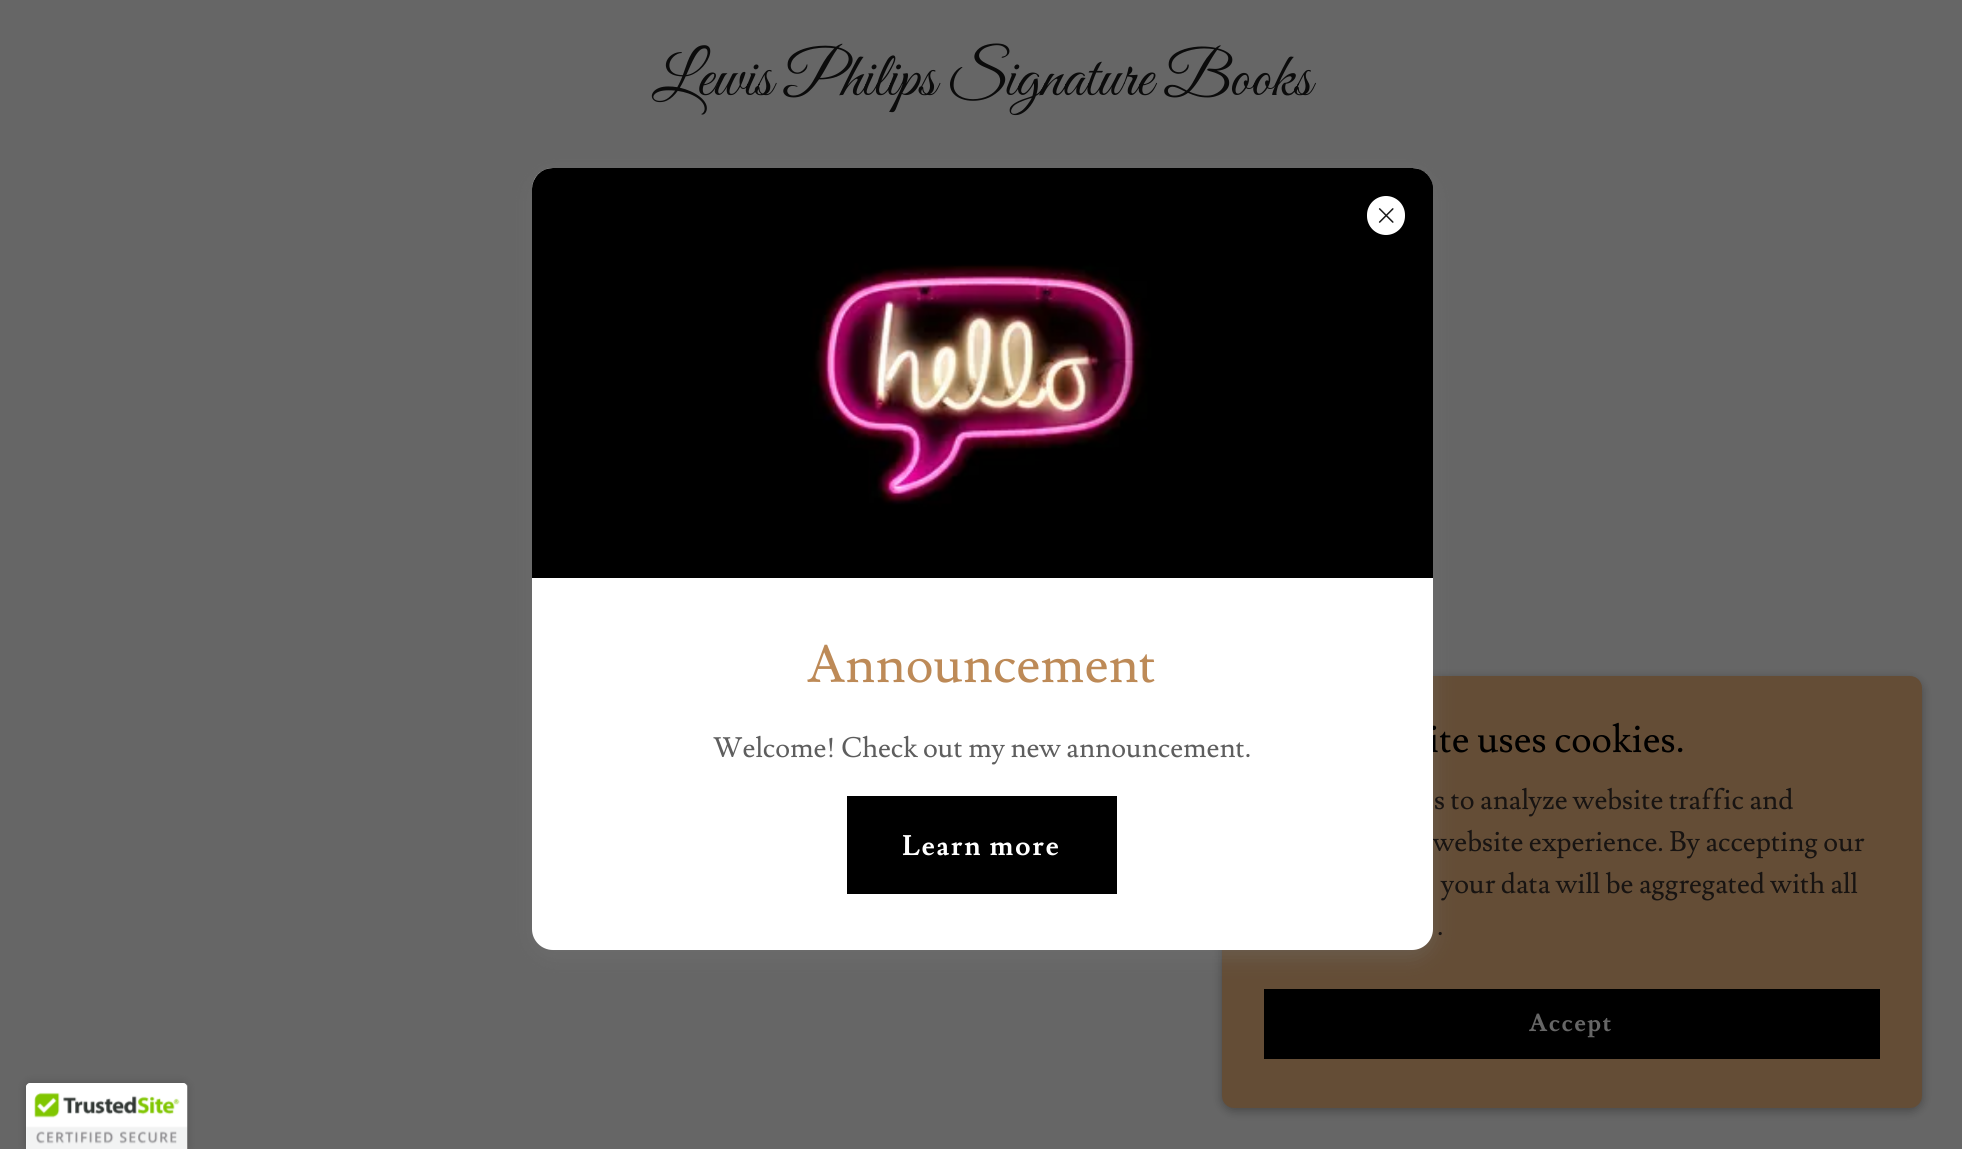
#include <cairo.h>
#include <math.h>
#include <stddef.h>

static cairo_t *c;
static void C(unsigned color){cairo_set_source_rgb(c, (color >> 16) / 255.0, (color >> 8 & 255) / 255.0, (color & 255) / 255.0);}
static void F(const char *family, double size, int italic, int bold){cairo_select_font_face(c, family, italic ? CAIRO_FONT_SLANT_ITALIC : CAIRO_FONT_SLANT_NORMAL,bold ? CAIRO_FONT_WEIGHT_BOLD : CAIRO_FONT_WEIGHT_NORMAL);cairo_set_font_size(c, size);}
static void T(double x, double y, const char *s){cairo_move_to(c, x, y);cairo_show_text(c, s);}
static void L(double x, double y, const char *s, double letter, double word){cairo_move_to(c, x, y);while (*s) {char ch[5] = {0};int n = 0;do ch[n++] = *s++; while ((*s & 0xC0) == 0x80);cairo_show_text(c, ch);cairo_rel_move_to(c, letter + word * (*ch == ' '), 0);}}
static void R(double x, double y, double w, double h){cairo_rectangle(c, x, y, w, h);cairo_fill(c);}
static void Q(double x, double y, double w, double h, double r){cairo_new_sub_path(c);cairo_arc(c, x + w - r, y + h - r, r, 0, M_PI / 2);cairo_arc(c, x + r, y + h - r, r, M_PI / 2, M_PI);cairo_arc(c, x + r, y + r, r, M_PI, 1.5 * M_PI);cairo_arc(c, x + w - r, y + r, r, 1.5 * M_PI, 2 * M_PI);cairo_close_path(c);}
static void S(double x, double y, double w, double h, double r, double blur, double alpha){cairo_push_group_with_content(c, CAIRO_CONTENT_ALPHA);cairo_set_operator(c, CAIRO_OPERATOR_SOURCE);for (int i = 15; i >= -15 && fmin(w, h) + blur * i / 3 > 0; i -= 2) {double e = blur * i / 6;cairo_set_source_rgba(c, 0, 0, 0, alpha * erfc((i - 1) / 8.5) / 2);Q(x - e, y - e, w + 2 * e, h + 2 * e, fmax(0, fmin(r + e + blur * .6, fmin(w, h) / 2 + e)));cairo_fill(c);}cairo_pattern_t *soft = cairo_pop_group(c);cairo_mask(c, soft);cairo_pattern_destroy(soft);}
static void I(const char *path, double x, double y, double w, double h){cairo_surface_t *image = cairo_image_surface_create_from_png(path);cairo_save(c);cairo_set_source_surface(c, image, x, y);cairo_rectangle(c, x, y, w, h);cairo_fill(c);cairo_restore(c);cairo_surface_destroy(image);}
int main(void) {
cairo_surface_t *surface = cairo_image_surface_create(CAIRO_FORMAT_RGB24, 1962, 1149);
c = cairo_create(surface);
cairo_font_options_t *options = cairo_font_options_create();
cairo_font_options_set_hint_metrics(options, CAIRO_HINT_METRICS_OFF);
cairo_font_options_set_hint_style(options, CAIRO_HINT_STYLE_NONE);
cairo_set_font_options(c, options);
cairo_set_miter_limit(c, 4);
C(0x666666);
cairo_paint(c);
F("Great Vibes",63,0,0);
C(0x0b0b0b);
T(652,95,"Lewis Philips Signature Books");
C(0x000000);
S(1222,679,700,432,12,5,.3);
C(0x644d36);
Q(1222,676,700,432,12);
cairo_fill(c);
C(0x000000);
R(1264,989,616,70);
C(0x757575);
S(532,175,901,782,21,10.5,.4);
F("Lusitana",38.5,0,0);
C(0x000000);
T(1428,752,"ite uses cookies.");
F("Lusitana",28,0,0);
C(0x181412);
T(1433,851,"website experience. By accepting our");
C(0xffffff);
Q(532,168,901,782,21);
cairo_fill(c);
I("2.png",532,168,901,410);
Q(1367,196,38,39,19);
cairo_fill(c);
I("1.png",1378,208,16,15);
F("Lusitana",52.5,0,0);
C(0xbd8a57);
T(807,682,"Announcement");
F("Lusitana",28,0,0);
C(0x5e5e5e);
T(713,757,"Welcome! Check out my new announcement.");
C(0x000000);
R(847,796,270,98);
F("Lusitana",28,0,1);
C(0xffffff);
L(902,855,"Learn more",1.75,0);
F("Lusitana",28,0,0);
C(0x181412);
T(1434,809,"s to analyze website traffic and");
T(1441,893,"your data will be aggregated with all");
T(1437,935,".");
F("Lusitana",24.5,0,1);
C(0x666666);
L(1529,1031,"Accept",1.5,0);
C(0x000000);
S(26,1083,161,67,4,4.5,.2);
C(0xffffff);
cairo_new_path(c);
cairo_move_to(c,30,1083);
cairo_line_to(c,183,1083);
cairo_curve_to(c,185,1083,187,1085,187,1087);
cairo_line_to(c,187,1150);
cairo_line_to(c,26,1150);
cairo_line_to(c,26,1087);
cairo_curve_to(c,26,1085,28,1083,30,1083);
cairo_close_path(c);
cairo_fill(c);
I("3.png",26,1083,162,66);
cairo_surface_write_to_png(surface, "o.png");
cairo_font_options_destroy(options);
cairo_destroy(c);
cairo_surface_destroy(surface);
return 0;
}
